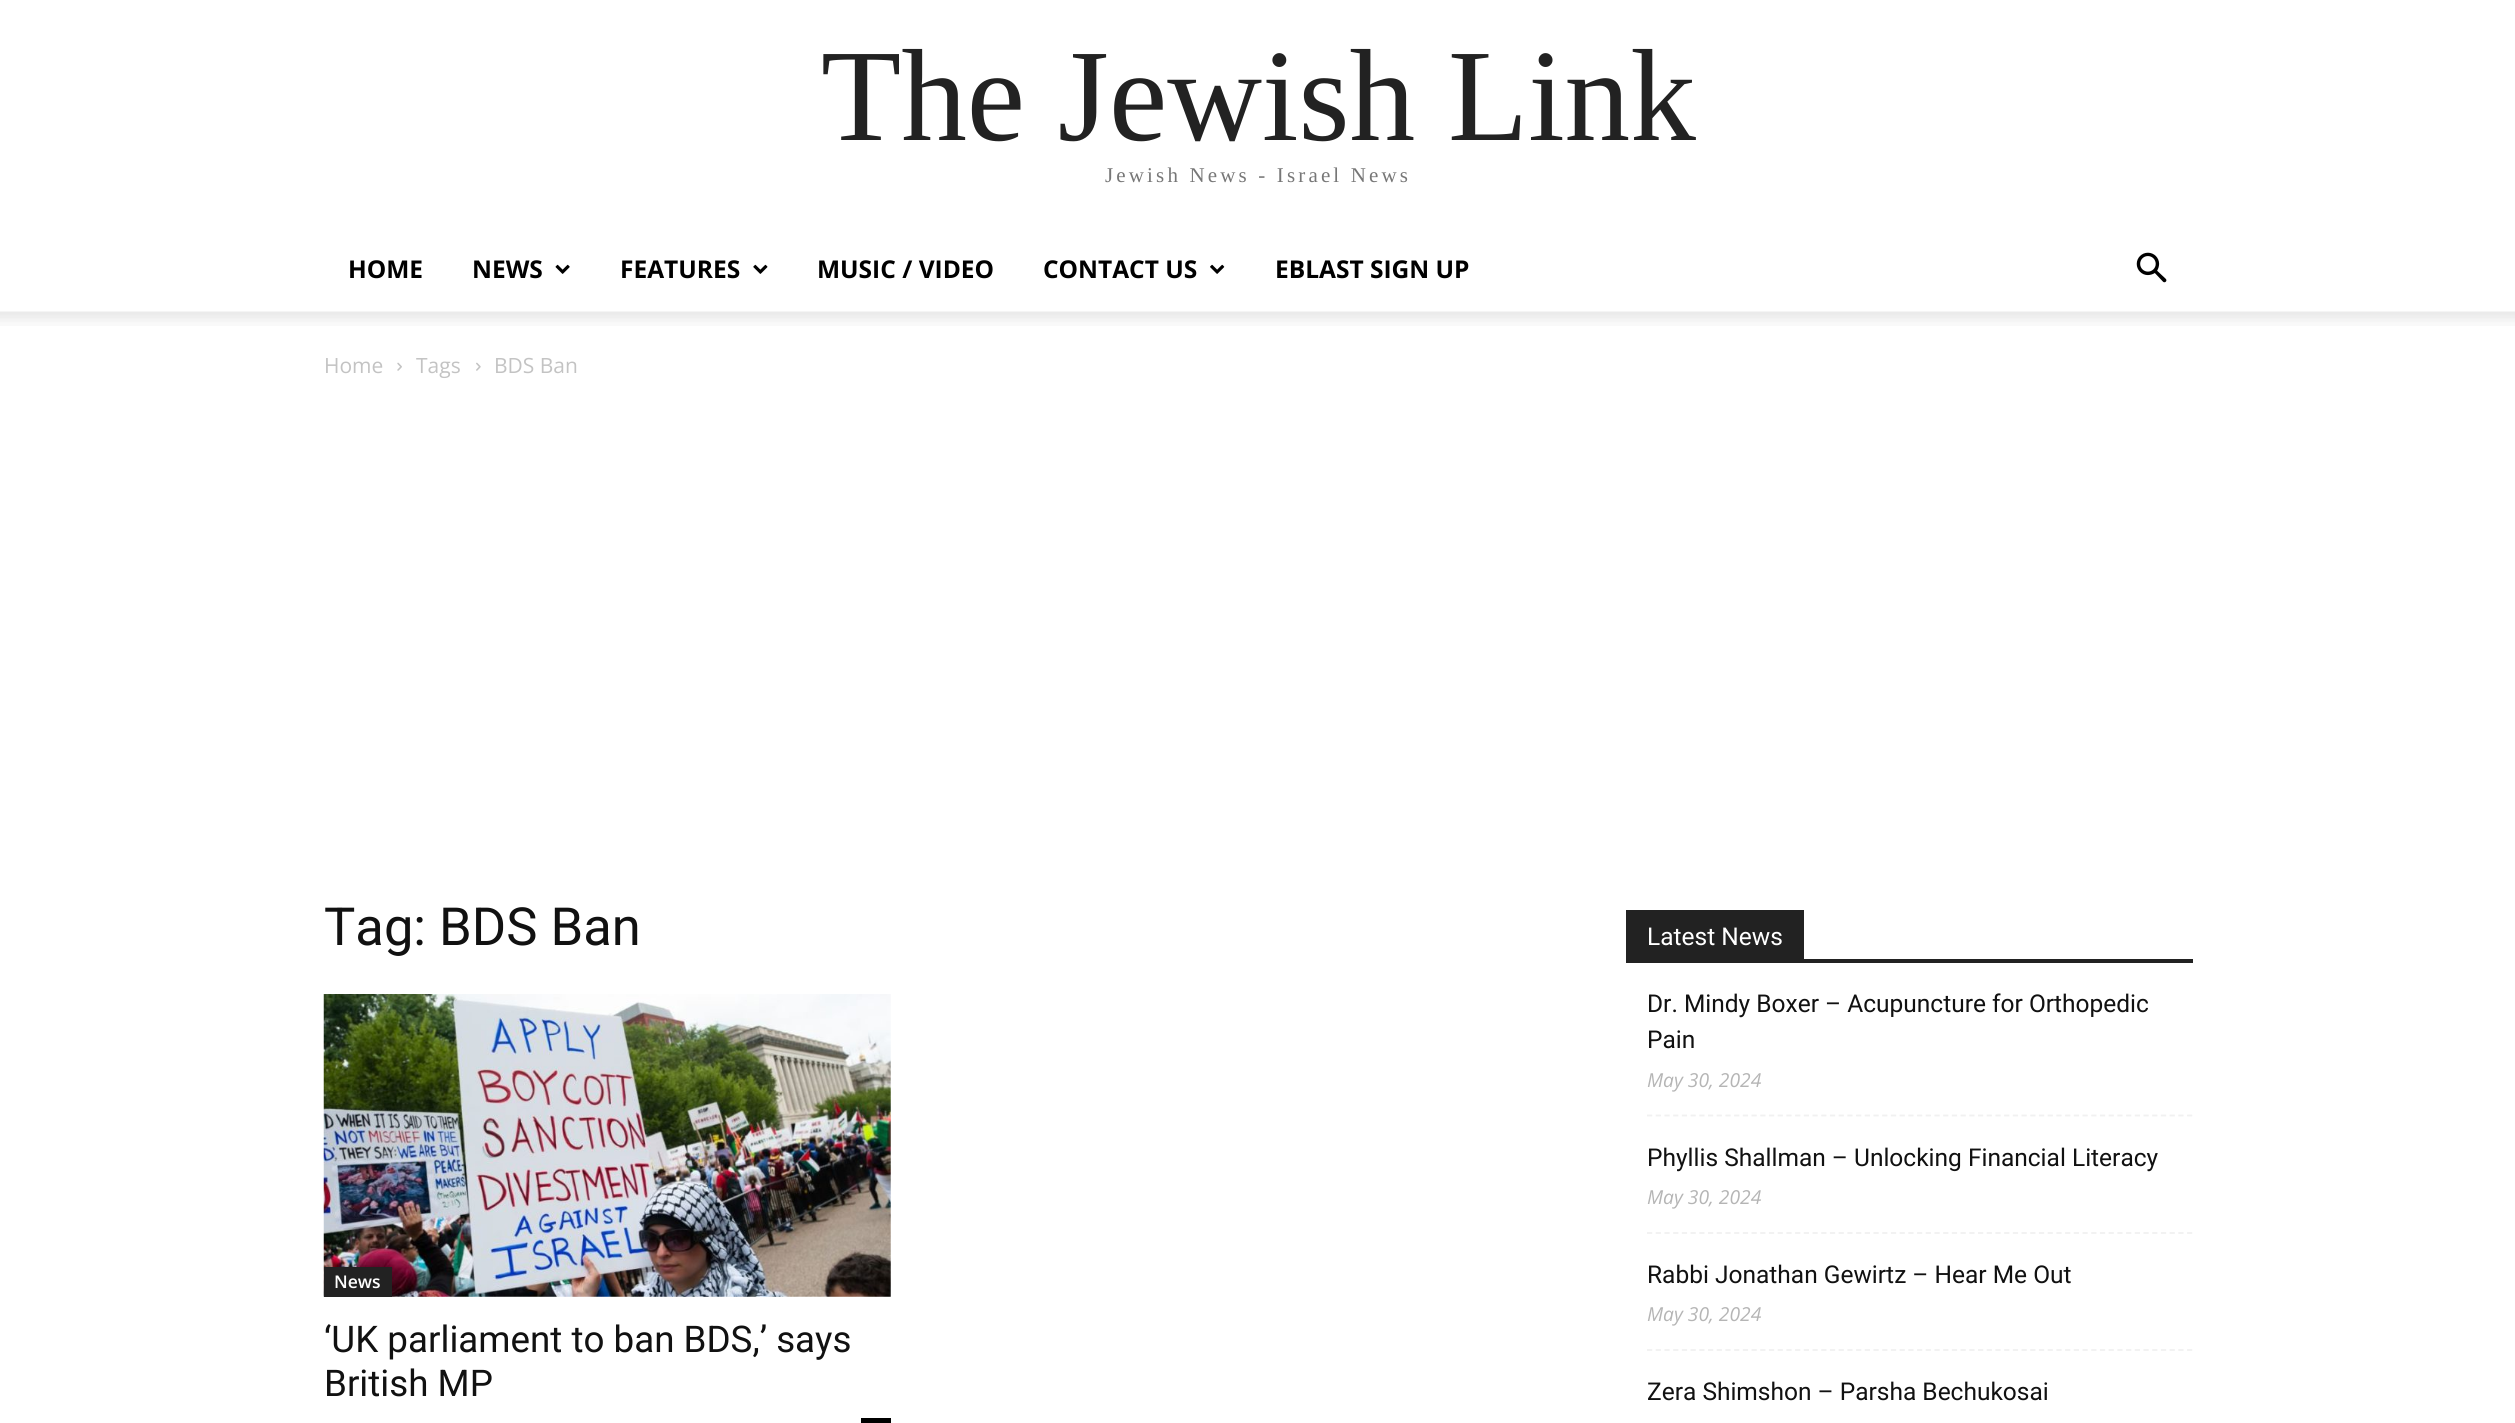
#include <cairo.h>
#include <math.h>
#include <stddef.h>

static cairo_t *c;
static void C(unsigned color){cairo_set_source_rgb(c, (color >> 16) / 255.0, (color >> 8 & 255) / 255.0, (color & 255) / 255.0);}
static void F(const char *family, double size, int italic, int bold){cairo_select_font_face(c, family, italic ? CAIRO_FONT_SLANT_ITALIC : CAIRO_FONT_SLANT_NORMAL,bold ? CAIRO_FONT_WEIGHT_BOLD : CAIRO_FONT_WEIGHT_NORMAL);cairo_set_font_size(c, size);}
static void T(double x, double y, const char *s){cairo_move_to(c, x, y);cairo_show_text(c, s);}
static void L(double x, double y, const char *s, double letter, double word){cairo_move_to(c, x, y);while (*s) {char ch[5] = {0};int n = 0;do ch[n++] = *s++; while ((*s & 0xC0) == 0x80);cairo_show_text(c, ch);cairo_rel_move_to(c, letter + word * (*ch == ' '), 0);}}
static void R(double x, double y, double w, double h){cairo_rectangle(c, x, y, w, h);cairo_fill(c);}
static void I(const char *path, double x, double y, double w, double h){cairo_surface_t *image = cairo_image_surface_create_from_png(path);cairo_save(c);cairo_set_source_surface(c, image, x, y);cairo_rectangle(c, x, y, w, h);cairo_fill(c);cairo_restore(c);cairo_surface_destroy(image);}
int main(void) {
cairo_surface_t *surface = cairo_image_surface_create(CAIRO_FORMAT_RGB24, 2515, 1423);
c = cairo_create(surface);
cairo_font_options_t *options = cairo_font_options_create();
cairo_font_options_set_hint_metrics(options, CAIRO_HINT_METRICS_OFF);
cairo_font_options_set_hint_style(options, CAIRO_HINT_STYLE_NONE);
cairo_set_font_options(c, options);
cairo_set_miter_limit(c, 4);
C(0xffffff);
cairo_paint(c);
F("Liberation Serif",131.25,0,0);
C(0x222222);
T(821,140,"The Jewish Link");
F("Liberation Serif",21,0,0);
C(0x777777);
L(1105,182,"Jewish News - Israel News",3.15,0);
F("Open Sans",24.5,0,1);
C(0x000000);
T(348,278,"HOME");
T(472,278,"NEWS");
I("1.png",555,264,15,10);
T(620,278,"FEATURES");
I("2.png",753,264,15,10);
T(817,278,"MUSIC / VIDEO");
T(1043,278,"CONTACT US");
I("3.png",1210,264,15,10);
T(1275,278,"EBLAST SIGN UP");
I("4.png",2136,252,31,31);
I("5.png",0,311,2515,15);
F("Open Sans",21,0,0);
C(0xc3c3c3);
T(324,373,"Home");
I("6.png",397,362,5,9);
T(416,373,"Tags");
I("7.png",476,362,5,9);
T(494,373,"BDS Ban");
F("Roboto",52.5,0,0);
C(0x111111);
T(324,945,"Tag: BDS Ban");
I("8.png",323,994,568,303);
C(0x222222);
R(324,1267,68,30);
F("Open Sans SemiBold",17.5,0,0);
C(0xffffff);
T(334,1288,"News");
F("Roboto",36.75,0,0);
C(0x111111);
T(324,1352,"‘UK parliament to ban BDS,’ says");
T(324,1396,"British MP");
C(0x000000);
R(861,1418,30,5);
C(0x222222);
R(1626,959,567,4);
R(1626,910,178,49);
F("Roboto",24.5,0,0);
C(0xffffff);
T(1647,945,"Latest News");
cairo_new_path(c);
cairo_move_to(c,1647,1115.5);
cairo_line_to(c,2193,1115.5);
C(0xf1f1f1);
cairo_set_line_width(c,1.8);
cairo_set_dash(c,(double[]){5.25,3.46},2,0);
cairo_stroke(c);
C(0x111111);
T(1647,1012,"Dr. Mindy Boxer – Acupuncture for Orthopedic");
T(1647,1048,"Pain");
F("Open Sans",19.25,1,0);
C(0xb5b5b5);
T(1647,1087,"May 30, 2024");
cairo_new_path(c);
cairo_move_to(c,1647,1233);
cairo_line_to(c,2193,1233);
C(0xf1f1f1);
cairo_stroke(c);
F("Roboto",24.5,0,0);
C(0x111111);
T(1647,1166,"Phyllis Shallman – Unlocking Financial Literacy");
F("Open Sans",19.25,1,0);
C(0xb5b5b5);
T(1647,1204,"May 30, 2024");
cairo_new_path(c);
cairo_move_to(c,1647,1350);
cairo_line_to(c,2193,1350);
C(0xf1f1f1);
cairo_stroke(c);
F("Roboto",24.5,0,0);
C(0x111111);
T(1647,1283,"Rabbi Jonathan Gewirtz – Hear Me Out");
F("Open Sans",19.25,1,0);
C(0xb5b5b5);
T(1647,1321,"May 30, 2024");
F("Roboto",24.5,0,0);
C(0x111111);
T(1647,1400,"Zera Shimshon – Parsha Bechukosai");
cairo_surface_write_to_png(surface, "o.png");
cairo_font_options_destroy(options);
cairo_destroy(c);
cairo_surface_destroy(surface);
return 0;
}
